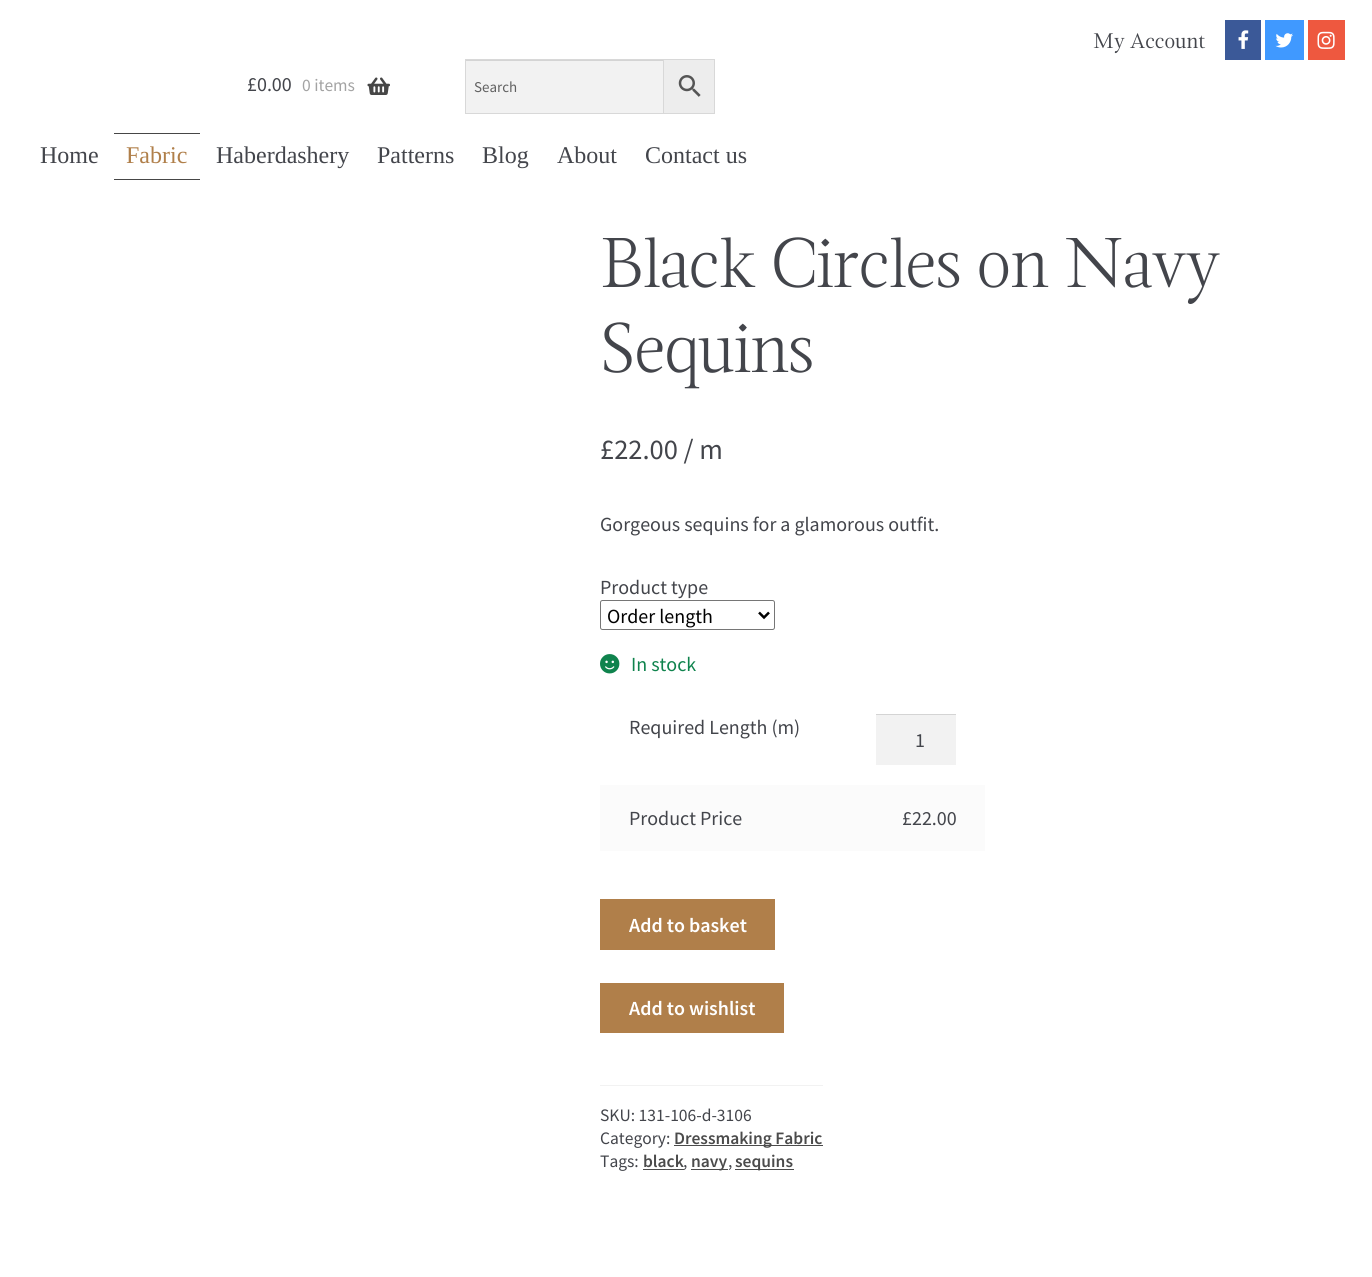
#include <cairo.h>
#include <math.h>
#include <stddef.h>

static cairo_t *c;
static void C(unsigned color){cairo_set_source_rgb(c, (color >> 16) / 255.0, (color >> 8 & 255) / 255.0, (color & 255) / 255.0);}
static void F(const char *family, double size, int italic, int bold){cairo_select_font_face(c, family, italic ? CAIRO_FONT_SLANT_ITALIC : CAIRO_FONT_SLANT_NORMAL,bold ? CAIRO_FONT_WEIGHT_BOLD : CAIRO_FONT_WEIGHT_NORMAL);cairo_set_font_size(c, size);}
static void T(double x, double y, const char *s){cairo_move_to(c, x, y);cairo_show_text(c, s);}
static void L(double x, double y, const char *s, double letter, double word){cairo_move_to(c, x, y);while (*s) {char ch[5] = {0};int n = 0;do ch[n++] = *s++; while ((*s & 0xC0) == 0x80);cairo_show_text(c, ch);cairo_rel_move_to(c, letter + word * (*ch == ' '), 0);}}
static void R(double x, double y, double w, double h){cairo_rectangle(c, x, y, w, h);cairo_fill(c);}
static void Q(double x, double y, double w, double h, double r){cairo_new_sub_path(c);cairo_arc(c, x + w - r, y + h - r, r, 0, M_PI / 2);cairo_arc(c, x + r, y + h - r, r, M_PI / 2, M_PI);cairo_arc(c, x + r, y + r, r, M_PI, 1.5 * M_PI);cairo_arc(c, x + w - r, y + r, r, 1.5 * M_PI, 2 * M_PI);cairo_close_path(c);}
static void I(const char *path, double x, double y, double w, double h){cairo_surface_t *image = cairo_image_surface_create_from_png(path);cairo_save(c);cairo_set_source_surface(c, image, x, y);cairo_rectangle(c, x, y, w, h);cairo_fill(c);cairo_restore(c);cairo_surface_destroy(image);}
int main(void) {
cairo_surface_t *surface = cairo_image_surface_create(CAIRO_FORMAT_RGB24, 1372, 1277);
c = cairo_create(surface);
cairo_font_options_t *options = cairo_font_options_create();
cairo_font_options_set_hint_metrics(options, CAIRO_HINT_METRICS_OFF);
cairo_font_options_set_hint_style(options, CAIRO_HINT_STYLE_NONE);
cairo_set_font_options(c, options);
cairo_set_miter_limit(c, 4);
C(0xffffff);
cairo_paint(c);
F("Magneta",21,0,0);
C(0x43454b);
T(1093,48,"My Account");
C(0x3b5998);
R(1225,20,36,40);
I("1.png",1238,30,11,19);
C(0x4099ff);
R(1265,20,39,40);
I("2.png",1275,33,18,15);
C(0xee583f);
R(1308,20,37,40);
I("3.png",1317,31,18,18);
F("Source Sans Pro",20,0,0);
C(0x43454b);
T(247,91,"£0.00");
F("Source Sans Pro",17.5,0,0);
C(0xa3a3a3);
T(302,91,"0 items");
I("4.png",367,77,23,18);
C(0xf2f2f2);
R(466,61,197,52);
C(0xd4d4d4);
R(466,60,197,1);
C(0xededed);
cairo_rectangle(c,663.5,59.5,51,54);
cairo_fill_preserve(c);
C(0xd8d8d8);
cairo_set_line_width(c,1);
cairo_stroke(c);
cairo_rectangle(c,465.5,59.5,198,54);
cairo_stroke(c);
F("Source Sans Pro",15,0,0);
C(0x616161);
T(474,92,"Search");
I("5.png",678,75,23,22);
F("Liberation Serif",24,0,0);
C(0x43454b);
T(40,163,"Home");
C(0x464646);
R(114,133,86,1);
R(114,179,86,1);
C(0xb07f4a);
T(126,163,"Fabric");
C(0x43454b);
T(216,163,"Haberdashery");
T(377,163,"Patterns");
T(482,163,"Blog");
T(557,163,"About");
T(645,163,"Contact us");
F("Magneta Thin",70,0,0);
L(600,287,"Black Circles on Navy",-1.25,0);
L(600,372,"Sequins",-1.25,0);
F("Source Sans Pro",28.5,0,0);
T(600,459,"£22.00 / m");
F("Source Sans Pro",20,0,0);
T(600,531,"Gorgeous sequins for a glamorous outfit.");
T(600,594,"Product type");
Q(600.5,600.5,174,29,2);
C(0x767676);
cairo_stroke(c);
cairo_new_path(c);
cairo_move_to(c,759,612.5);
cairo_line_to(c,764,617.5);
cairo_line_to(c,769,612.5);
C(0x000000);
cairo_set_line_width(c,2.5);
cairo_stroke(c);
T(607,623,"Order length");
I("6.png",600,654,20,20);
C(0x0f834d);
T(631,671,"In stock");
C(0x43454b);
T(629,734,"Required Length (m)");
C(0xf2f2f2);
R(876,715,80,50);
C(0xd4d4d4);
R(876,714,80,1);
C(0x43454b);
T(915,747,"1");
C(0xfbfbfb);
R(600,785,385,66);
C(0x43454b);
T(629,825,"Product Price");
T(902,825,"£22.00");
C(0xb07f4a);
R(600,899,175,51);
F("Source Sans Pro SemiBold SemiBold",20,0,0);
C(0xffffff);
T(629,932,"Add to basket");
C(0xb07f4a);
R(600,983,184,50);
C(0xffffff);
T(629,1015,"Add to wishlist");
C(0xf2f2f2);
R(600,1085,223,1);
F("Source Sans Pro",17.5,0,0);
C(0x43454b);
T(600,1121,"SKU: 131-106-d-3106");
T(600,1144,"Category:");
C(0x4b4b4b);
R(674,1145,149,1);
F("Source Sans Pro SemiBold SemiBold",17.5,0,0);
T(674,1144,"Dressmaking Fabric");
F("Source Sans Pro",17.5,0,0);
C(0x43454b);
T(600,1167,"Tags:");
F("Source Sans Pro SemiBold SemiBold",17.5,0,0);
C(0x4b4b4b);
T(643,1167,"black");
R(643,1169,41,1);
F("Source Sans Pro",17.5,0,0);
C(0x43454b);
T(683,1167,",");
C(0x4b4b4b);
R(691,1169,37,1);
F("Source Sans Pro SemiBold SemiBold",17.5,0,0);
T(691,1167,"navy");
F("Source Sans Pro",17.5,0,0);
C(0x43454b);
T(728,1167,",");
C(0x4b4b4b);
R(735,1169,59,1);
F("Source Sans Pro SemiBold SemiBold",17.5,0,0);
T(735,1167,"sequins");
cairo_surface_write_to_png(surface, "o.png");
cairo_font_options_destroy(options);
cairo_destroy(c);
cairo_surface_destroy(surface);
return 0;
}
